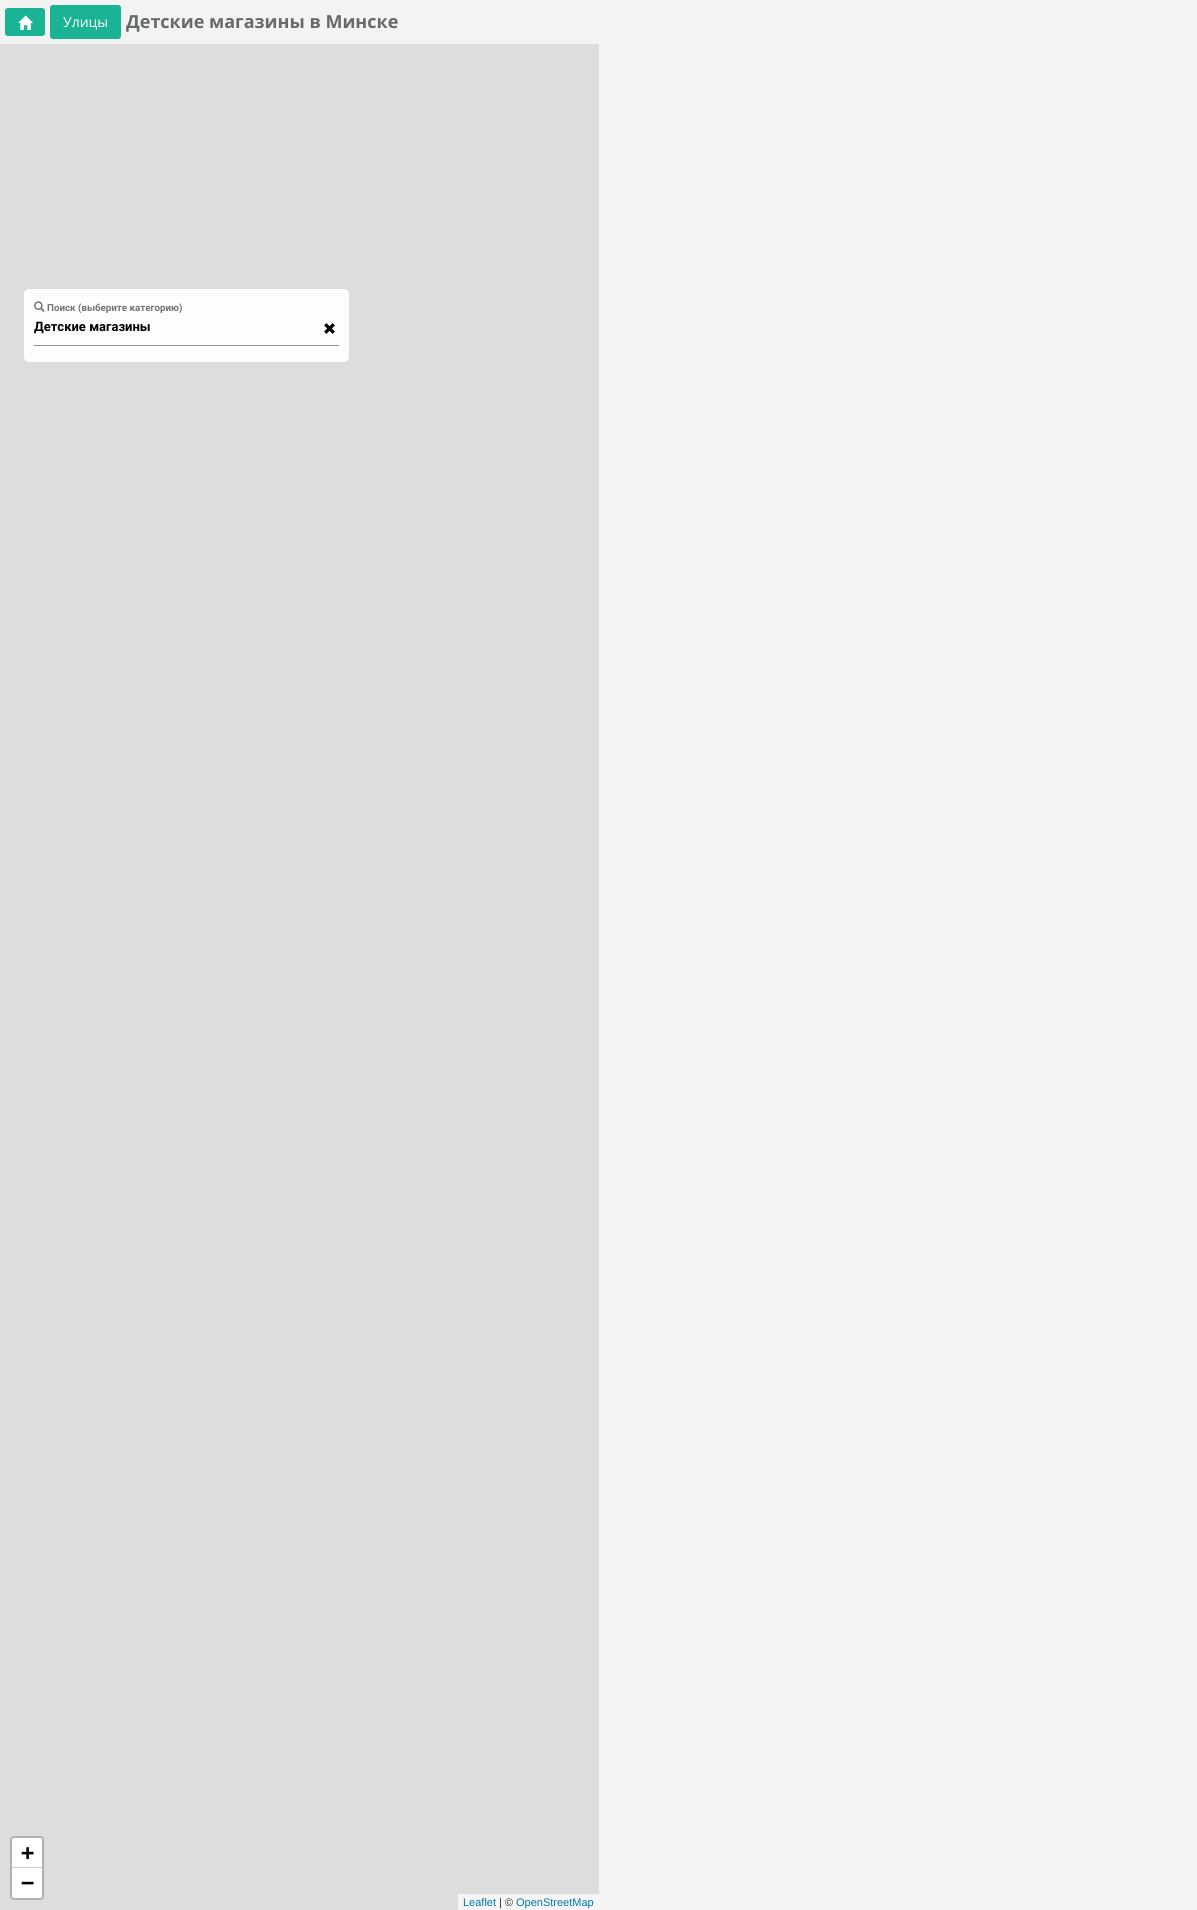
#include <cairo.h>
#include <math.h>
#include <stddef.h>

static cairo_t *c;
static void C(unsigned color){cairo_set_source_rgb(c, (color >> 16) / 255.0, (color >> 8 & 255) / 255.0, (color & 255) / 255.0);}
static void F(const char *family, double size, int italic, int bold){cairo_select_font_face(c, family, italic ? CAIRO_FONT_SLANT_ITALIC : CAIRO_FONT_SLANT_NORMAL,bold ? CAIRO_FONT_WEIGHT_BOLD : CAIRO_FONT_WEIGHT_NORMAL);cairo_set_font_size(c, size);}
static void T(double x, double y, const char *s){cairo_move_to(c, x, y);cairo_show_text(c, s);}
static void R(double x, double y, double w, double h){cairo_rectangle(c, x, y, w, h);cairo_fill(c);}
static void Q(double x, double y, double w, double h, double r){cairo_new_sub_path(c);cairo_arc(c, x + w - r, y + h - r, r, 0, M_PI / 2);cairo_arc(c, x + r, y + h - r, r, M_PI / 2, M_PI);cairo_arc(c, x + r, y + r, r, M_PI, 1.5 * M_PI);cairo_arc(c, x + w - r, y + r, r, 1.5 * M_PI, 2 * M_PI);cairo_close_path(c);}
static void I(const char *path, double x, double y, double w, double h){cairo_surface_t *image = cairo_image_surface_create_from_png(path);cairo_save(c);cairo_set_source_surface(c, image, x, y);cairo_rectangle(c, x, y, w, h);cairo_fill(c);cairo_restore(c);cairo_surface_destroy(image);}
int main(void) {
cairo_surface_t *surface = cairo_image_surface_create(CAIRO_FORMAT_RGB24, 1197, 1910);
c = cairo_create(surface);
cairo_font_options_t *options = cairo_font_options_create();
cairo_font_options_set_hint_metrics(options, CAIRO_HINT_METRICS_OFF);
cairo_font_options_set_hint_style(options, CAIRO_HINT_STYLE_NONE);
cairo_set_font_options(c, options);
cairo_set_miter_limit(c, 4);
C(0xf3f3f4);
cairo_paint(c);
C(0x1ab394);
Q(5.5,8.5,39,27,2.5);
cairo_fill_preserve(c);
cairo_set_line_width(c,1);
cairo_stroke(c);
I("1.png",18,15,15,15);
Q(50.5,5.5,70,33,2.5);
cairo_fill_preserve(c);
cairo_stroke(c);
F("Open Sans",14,0,0);
C(0xffffff);
T(63,27,"Улицы");
F("Open Sans",18,0,1);
C(0x676a6c);
T(126,28,"Детские магазины в Минске");
C(0xdddddd);
R(0,44,599,1866);
C(0xfdfdfd);
Q(24,289,325,73,5);
cairo_fill(c);
I("2.png",34,301,11,11);
F("Roboto",9.75,0,1);
C(0x747474);
T(47,311,"Поиск (выберите категорию)");
F("Roboto",13,0,1);
C(0x000000);
T(34,331,"Детские магазины");
I("3.png",324,323,11,11);
C(0x939393);
R(34,345,305,1);
Q(11,1837,32,62,3);
C(0xb1b1b1);
cairo_set_line_width(c,2);
cairo_stroke(c);
C(0xffffff);
cairo_new_path(c);
cairo_move_to(c,14,1838);
cairo_line_to(c,40,1838);
cairo_curve_to(c,41,1838,42,1839,42,1840);
cairo_line_to(c,42,1868);
cairo_line_to(c,12,1868);
cairo_line_to(c,12,1840);
cairo_curve_to(c,12,1839,13,1838,14,1838);
cairo_close_path(c);
cairo_fill(c);
C(0xcccccc);
R(12,1867,30,1);
F("DejaVu Sans Mono",22,0,1);
C(0x000000);
T(21,1860,"+");
C(0xffffff);
cairo_new_path(c);
cairo_move_to(c,12,1868);
cairo_line_to(c,42,1868);
cairo_line_to(c,42,1896);
cairo_curve_to(c,42,1897,41,1898,40,1898);
cairo_line_to(c,14,1898);
cairo_curve_to(c,13,1898,12,1897,12,1896);
cairo_close_path(c);
cairo_fill(c);
C(0x000000);
T(21,1890,"−");
C(0xf5f5f5);
R(458,1894,141,16);
F("Liberation Sans",11,0,0);
C(0x0078a8);
T(463,1906,"Leaflet");
C(0x333333);
T(499,1906,"| ©");
C(0x0078a8);
T(516,1906,"OpenStreetMap");
cairo_surface_write_to_png(surface, "o.png");
cairo_font_options_destroy(options);
cairo_destroy(c);
cairo_surface_destroy(surface);
return 0;
}
